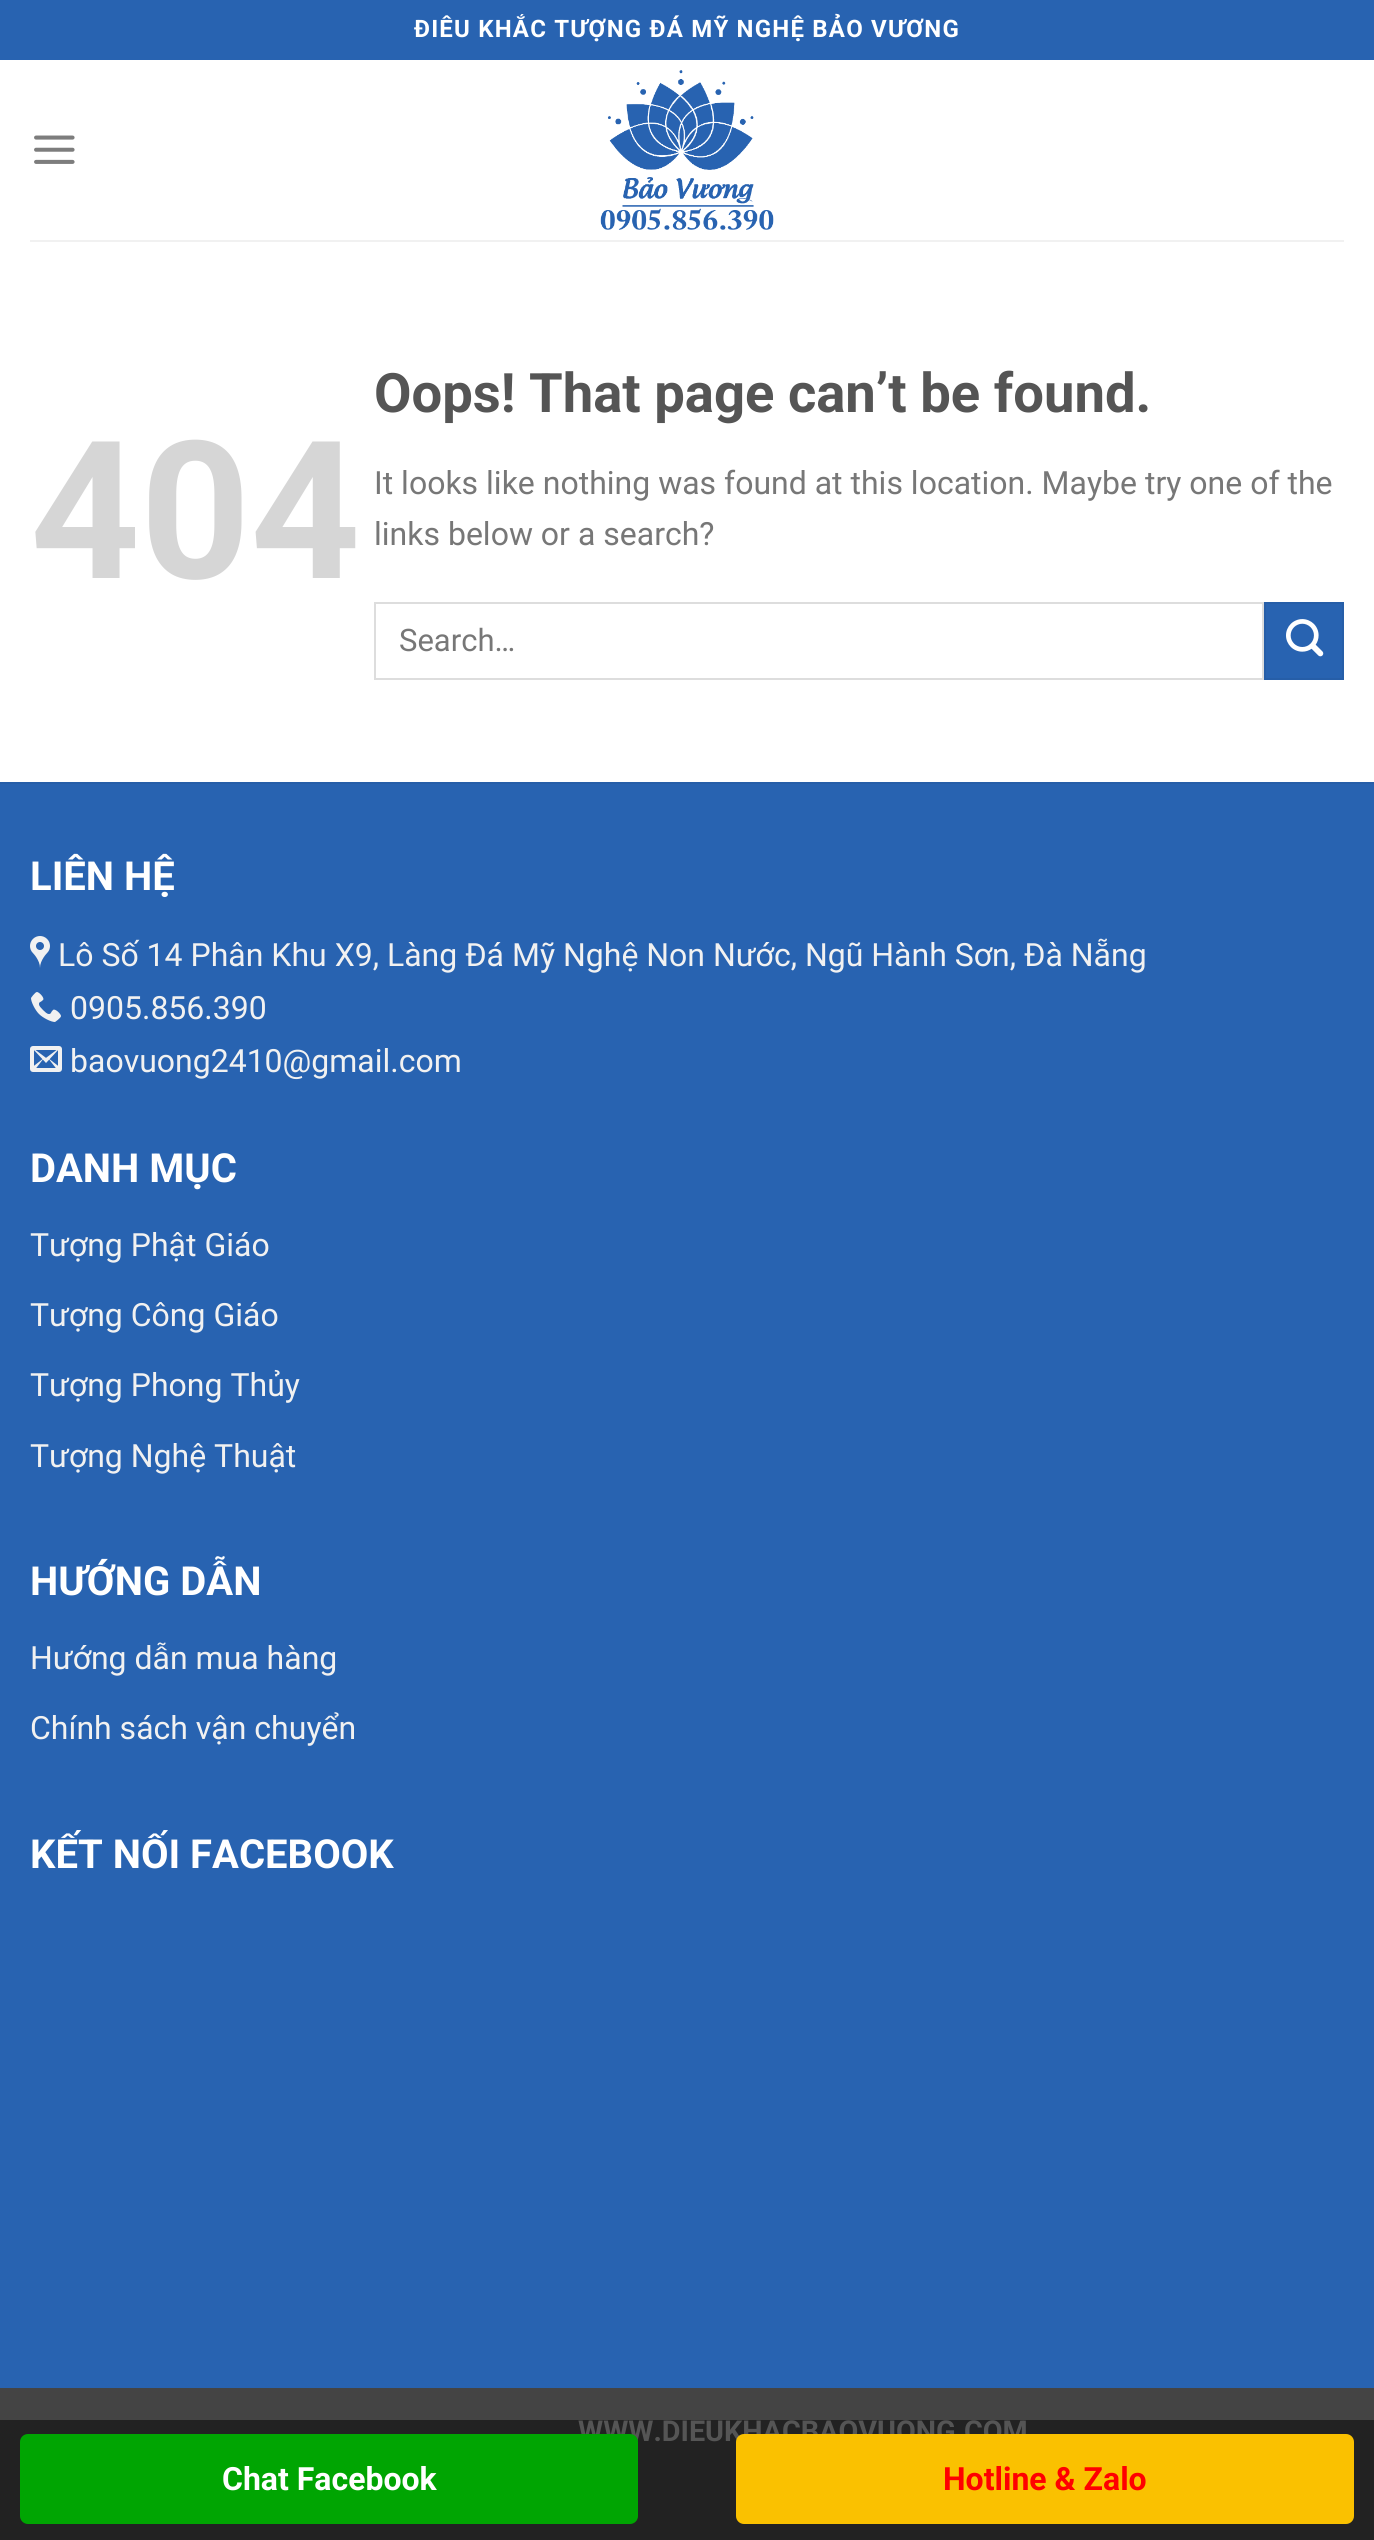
#include <cairo.h>
#include <math.h>
#include <stddef.h>

static cairo_t *c;
static void C(unsigned color){cairo_set_source_rgb(c, (color >> 16) / 255.0, (color >> 8 & 255) / 255.0, (color & 255) / 255.0);}
static void F(const char *family, double size, int italic, int bold){cairo_select_font_face(c, family, italic ? CAIRO_FONT_SLANT_ITALIC : CAIRO_FONT_SLANT_NORMAL,bold ? CAIRO_FONT_WEIGHT_BOLD : CAIRO_FONT_WEIGHT_NORMAL);cairo_set_font_size(c, size);}
static void T(double x, double y, const char *s){cairo_move_to(c, x, y);cairo_show_text(c, s);}
static void L(double x, double y, const char *s, double letter, double word){cairo_move_to(c, x, y);while (*s) {char ch[5] = {0};int n = 0;do ch[n++] = *s++; while ((*s & 0xC0) == 0x80);cairo_show_text(c, ch);cairo_rel_move_to(c, letter + word * (*ch == ' '), 0);}}
static void R(double x, double y, double w, double h){cairo_rectangle(c, x, y, w, h);cairo_fill(c);}
static void Q(double x, double y, double w, double h, double r){cairo_new_sub_path(c);cairo_arc(c, x + w - r, y + h - r, r, 0, M_PI / 2);cairo_arc(c, x + r, y + h - r, r, M_PI / 2, M_PI);cairo_arc(c, x + r, y + r, r, M_PI, 1.5 * M_PI);cairo_arc(c, x + w - r, y + r, r, 1.5 * M_PI, 2 * M_PI);cairo_close_path(c);}
static void I(const char *path, double x, double y, double w, double h){cairo_surface_t *image = cairo_image_surface_create_from_png(path);cairo_save(c);cairo_set_source_surface(c, image, x, y);cairo_rectangle(c, x, y, w, h);cairo_fill(c);cairo_restore(c);cairo_surface_destroy(image);}
int main(void) {
cairo_surface_t *surface = cairo_image_surface_create(CAIRO_FORMAT_RGB24, 1374, 2540);
c = cairo_create(surface);
cairo_font_options_t *options = cairo_font_options_create();
cairo_font_options_set_hint_metrics(options, CAIRO_HINT_METRICS_OFF);
cairo_font_options_set_hint_style(options, CAIRO_HINT_STYLE_NONE);
cairo_set_font_options(c, options);
cairo_set_miter_limit(c, 4);
C(0x222222);
cairo_paint(c);
C(0xffffff);
R(0,60,1374,722);
C(0x2863b1);
R(0,0,1374,60);
F("Roboto",24,0,1);
C(0xffffff);
L(414,37,"ĐIÊU KHẮC TƯỢNG ĐÁ MỸ NGHỆ BẢO VƯƠNG",1.2,0);
I("1.png",34,135,41,29);
I("2.png",600,70,174,160);
C(0xf1f1f1);
R(30,240,1314,2);
F("Roboto",192,0,1);
C(0xd6d6d6);
T(30,578,"404");
F("Roboto",54.4,0,1);
C(0x555555);
T(374,412,"Oops! That page can’t be found.");
F("Roboto",32,0,0);
C(0x777777);
T(374,494,"It looks like nothing was found at this location. Maybe try one of the");
T(374,545,"links below or a search?");
cairo_rectangle(c,375,603,888,76);
C(0xdddddd);
cairo_stroke(c);
F("Roboto",31,0,0);
C(0x777777);
T(399,651,"Search…");
C(0x2863b1);
cairo_rectangle(c,1265,603,78,76);
cairo_fill_preserve(c);
C(0x265ea8);
cairo_stroke(c);
I("3.png",1286,619,38,38);
C(0x2863b1);
R(0,784,1374,1604);
C(0x265ea8);
R(0,782,1374,2);
F("Roboto",40,0,1);
C(0xffffff);
T(30,890,"LIÊN HỆ");
I("4.png",30,936,20,32);
F("Roboto",32,0,0);
C(0xf1f1f1);
T(58,966,"Lô Số 14 Phân Khu X9, Làng Đá Mỹ Nghệ Non Nước, Ngũ Hành Sơn, Đà Nẵng");
I("5.png",31,992,30,30);
T(70,1019,"0905.856.390");
I("6.png",30,1046,32,26);
T(70,1072,"baovuong2410@gmail.com");
F("Roboto",40,0,1);
C(0xffffff);
T(30,1182,"DANH MỤC");
F("Roboto",32,0,0);
C(0xf1f1f1);
T(30,1256,"Tượng Phật Giáo");
T(30,1326,"Tượng Công Giáo");
T(30,1396,"Tượng Phong Thủy");
T(30,1467,"Tượng Nghệ Thuật");
F("Roboto",40,0,1);
C(0xffffff);
T(30,1595,"HƯỚNG DẪN");
F("Roboto",32,0,0);
C(0xf1f1f1);
T(30,1669,"Hướng dẫn mua hàng");
T(30,1739,"Chính sách vận chuyển");
F("Roboto",40,0,1);
C(0xffffff);
T(30,1868,"KẾT NỐI FACEBOOK");
C(0x444444);
R(0,2388,1374,32);
F("Roboto",28.75,0,1);
C(0x555555);
T(578,2441,"WWW.DIEUKHACBAOVUONG.COM");
C(0x00a502);
Q(20,2434,618,90,8);
cairo_fill(c);
F("Roboto",32,0,1);
C(0xffffff);
T(222,2490,"Chat Facebook");
C(0xfac100);
Q(736,2434,618,90,8);
cairo_fill(c);
C(0xff0000);
T(943,2490,"Hotline & Zalo");
cairo_surface_write_to_png(surface, "o.png");
cairo_font_options_destroy(options);
cairo_destroy(c);
cairo_surface_destroy(surface);
return 0;
}
